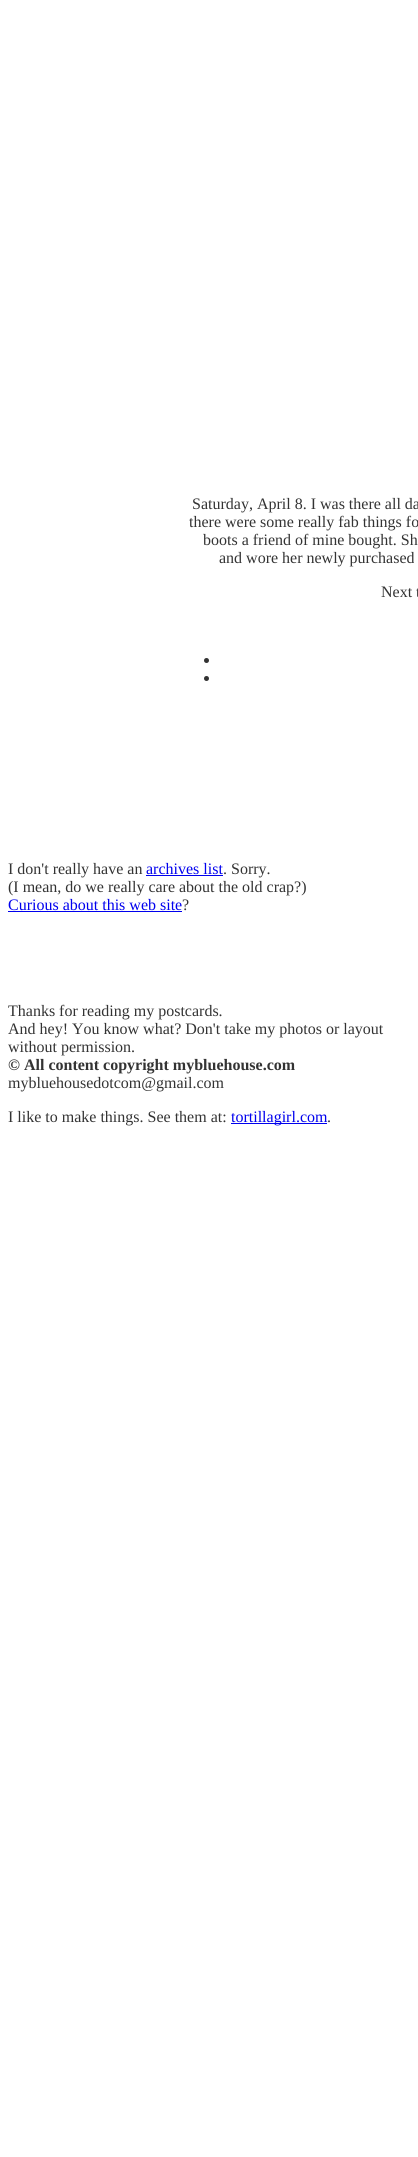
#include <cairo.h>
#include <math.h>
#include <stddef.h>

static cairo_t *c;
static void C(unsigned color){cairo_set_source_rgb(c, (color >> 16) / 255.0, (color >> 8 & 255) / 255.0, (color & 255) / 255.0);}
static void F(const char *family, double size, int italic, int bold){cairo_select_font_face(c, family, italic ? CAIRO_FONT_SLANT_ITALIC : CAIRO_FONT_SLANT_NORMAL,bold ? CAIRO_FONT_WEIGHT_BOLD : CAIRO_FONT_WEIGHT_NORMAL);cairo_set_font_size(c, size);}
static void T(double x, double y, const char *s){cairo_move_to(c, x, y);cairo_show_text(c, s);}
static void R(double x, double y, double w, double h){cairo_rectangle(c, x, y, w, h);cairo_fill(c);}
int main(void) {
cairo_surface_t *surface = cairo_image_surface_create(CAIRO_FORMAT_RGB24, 418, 2157);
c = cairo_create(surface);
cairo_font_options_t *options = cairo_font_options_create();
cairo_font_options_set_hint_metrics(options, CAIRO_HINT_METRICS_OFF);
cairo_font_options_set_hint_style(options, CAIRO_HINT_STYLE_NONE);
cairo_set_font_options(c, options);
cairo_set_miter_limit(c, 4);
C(0xffffff);
cairo_paint(c);
F("Liberation Serif",16,0,0);
C(0x333333);
T(192,509,"Saturday, April 8. I was there all da");
T(189,527,"there were some really fab things fo");
T(203,545,"boots a friend of mine bought. Sh");
T(219,563,"and wore her newly purchased");
T(381,597,"Next t");
cairo_new_path(c);
cairo_arc(c,206.5,660.5,2.5,0,2 * M_PI);
cairo_fill(c);
cairo_arc(c,206.5,678.5,2.5,0,2 * M_PI);
cairo_fill(c);
T(8,874,"I don't really have an");
C(0x0000ee);
T(146,874,"archives list");
R(146,875,77,1);
C(0x333333);
T(223,874,". Sorry.");
T(8,892,"(I mean, do we really care about the old crap?)");
C(0x0000ee);
T(8,910,"Curious about this web site");
R(8,911,174,1);
C(0x333333);
T(182,910,"?");
T(8,1016,"Thanks for reading my postcards.");
T(8,1034,"And hey! You know what? Don't take my photos or layout");
T(8,1052,"without permission.");
F("Liberation Serif",16,0,1);
T(8,1070,"© All content copyright mybluehouse.com");
F("Liberation Serif",16,0,0);
T(8,1088,"mybluehousedotcom@gmail.com");
T(8,1122,"I like to make things. See them at:");
C(0x0000ee);
R(231,1123,96,1);
T(231,1122,"tortillagirl.com");
C(0x333333);
T(327,1122,".");
cairo_surface_write_to_png(surface, "o.png");
cairo_font_options_destroy(options);
cairo_destroy(c);
cairo_surface_destroy(surface);
return 0;
}
